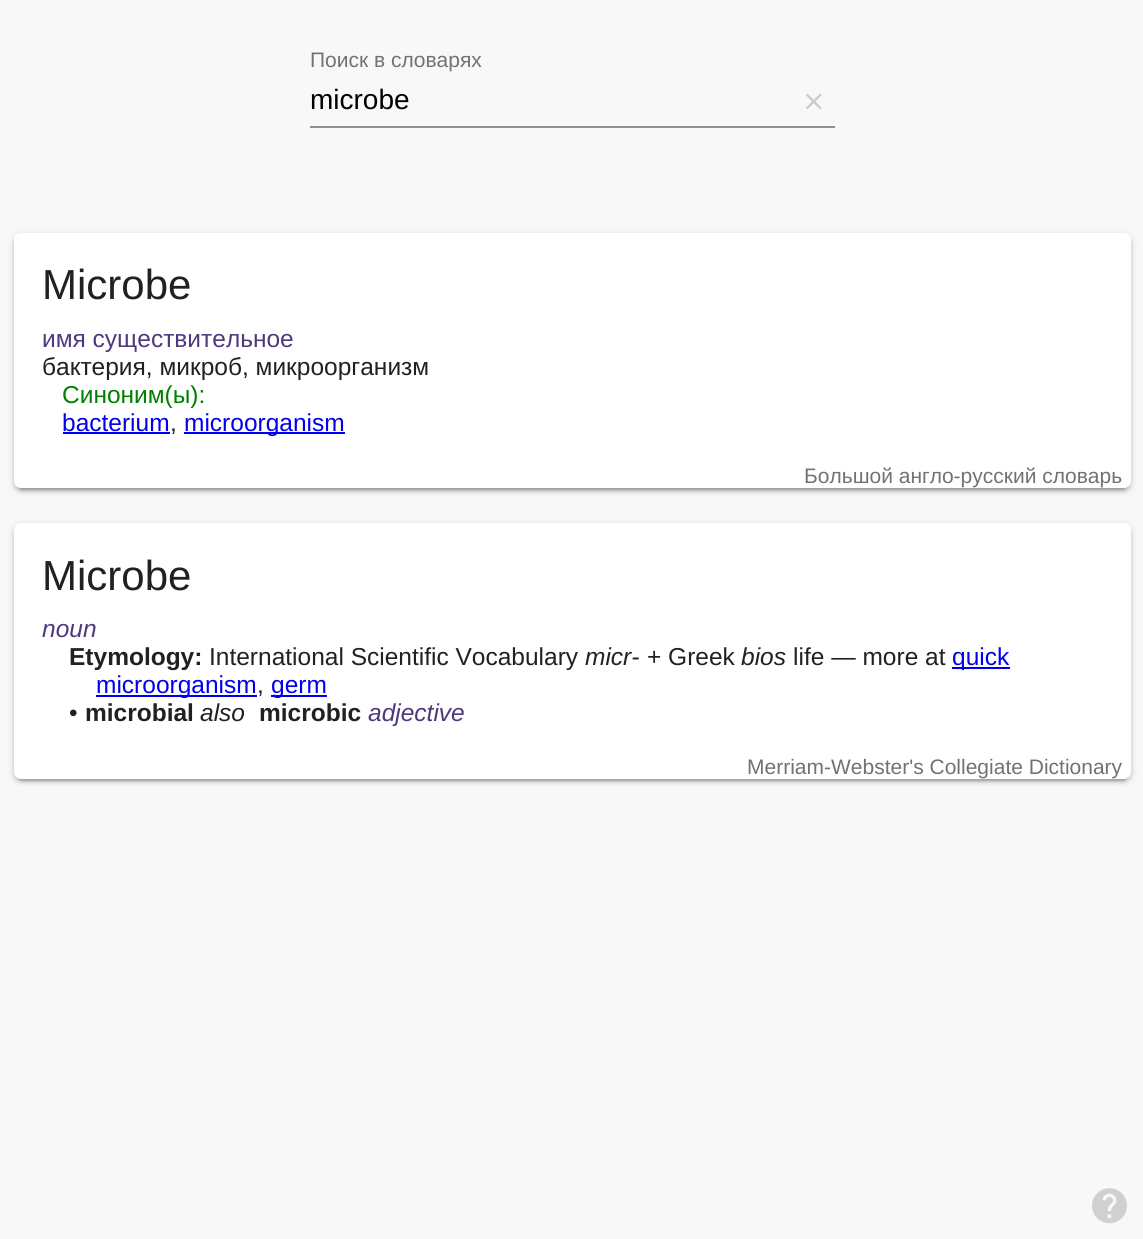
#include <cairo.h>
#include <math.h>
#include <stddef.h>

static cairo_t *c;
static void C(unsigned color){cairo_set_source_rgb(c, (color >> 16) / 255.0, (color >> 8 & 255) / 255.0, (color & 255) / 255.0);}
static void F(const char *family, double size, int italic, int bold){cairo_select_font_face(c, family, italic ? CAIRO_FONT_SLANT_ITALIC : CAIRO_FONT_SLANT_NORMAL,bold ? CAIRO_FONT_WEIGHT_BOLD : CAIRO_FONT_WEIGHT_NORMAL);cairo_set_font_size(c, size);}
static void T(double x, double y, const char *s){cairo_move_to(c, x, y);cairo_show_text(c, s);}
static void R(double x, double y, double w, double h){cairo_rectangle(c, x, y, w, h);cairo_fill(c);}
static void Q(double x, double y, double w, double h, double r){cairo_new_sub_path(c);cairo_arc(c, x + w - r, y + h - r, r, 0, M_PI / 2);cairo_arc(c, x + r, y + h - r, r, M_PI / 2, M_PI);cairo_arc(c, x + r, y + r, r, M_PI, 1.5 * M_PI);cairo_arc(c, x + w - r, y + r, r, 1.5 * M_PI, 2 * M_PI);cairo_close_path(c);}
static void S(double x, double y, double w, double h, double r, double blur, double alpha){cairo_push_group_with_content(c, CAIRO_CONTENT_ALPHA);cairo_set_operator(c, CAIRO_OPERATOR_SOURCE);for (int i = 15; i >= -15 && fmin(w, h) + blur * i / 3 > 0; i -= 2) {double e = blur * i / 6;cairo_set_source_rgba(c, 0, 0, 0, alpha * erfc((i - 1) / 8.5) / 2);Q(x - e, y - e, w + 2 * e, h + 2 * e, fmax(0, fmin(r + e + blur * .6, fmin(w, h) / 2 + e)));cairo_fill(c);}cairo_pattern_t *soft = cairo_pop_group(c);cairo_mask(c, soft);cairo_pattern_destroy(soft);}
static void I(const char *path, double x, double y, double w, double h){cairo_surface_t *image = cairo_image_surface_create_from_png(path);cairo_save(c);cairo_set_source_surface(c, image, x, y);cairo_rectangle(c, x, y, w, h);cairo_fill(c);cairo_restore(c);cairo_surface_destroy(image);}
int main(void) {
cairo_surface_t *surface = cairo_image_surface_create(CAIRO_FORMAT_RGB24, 1143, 1239);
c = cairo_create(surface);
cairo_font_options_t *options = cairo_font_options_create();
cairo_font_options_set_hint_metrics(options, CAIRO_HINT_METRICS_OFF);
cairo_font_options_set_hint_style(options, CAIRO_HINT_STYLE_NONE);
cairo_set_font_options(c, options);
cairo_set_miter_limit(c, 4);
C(0xf8f8f8);
cairo_paint(c);
F("Liberation Sans",21,0,0);
C(0x727272);
T(310,67,"Поиск в словарях");
F("Liberation Sans",28,0,0);
C(0x000000);
T(310,109,"microbe");
I("1.png",806,94,16,15);
C(0x909090);
R(310,126,525,2);
C(0x000000);
S(14,235,1117,255,7,4.5,.12);
S(14,236,1117,256,7,2,.14);
S(18,242,1109,248,4,1,.2);
C(0xffffff);
Q(14,233,1117,255,7);
cairo_fill(c);
F("Liberation Sans",42,0,0);
C(0x212121);
T(42,299,"Microbe");
F("Liberation Sans",24.5,0,0);
C(0x4e387e);
T(42,347,"имя существительное");
C(0x212121);
T(42,375,"бактерия, микроб, микроорганизм");
C(0x008000);
T(62,403,"Синоним(ы):");
C(0x0000ee);
T(62,431,"bacterium");
R(63,432,107,2);
C(0x212121);
T(170,431,",");
C(0x0000ee);
R(184,432,161,2);
T(184,431,"microorganism");
F("Liberation Sans",21,0,0);
C(0x727272);
T(804,483,"Большой англо-русский словарь");
C(0x000000);
S(14,525,1117,256,7,4.5,.12);
S(14,527,1117,255,7,2,.14);
S(18,532,1109,249,4,1,.2);
C(0xffffff);
Q(14,523,1117,256,7);
cairo_fill(c);
F("Liberation Sans",42,0,0);
C(0x212121);
T(42,590,"Microbe");
F("Liberation Sans",24.5,1,0);
C(0x4e387e);
T(42,637,"noun");
F("Liberation Sans",24.5,0,1);
C(0x212121);
T(69,665,"Etymology:");
F("Liberation Sans",24.5,0,0);
T(209,665,"International Scientific Vocabulary");
F("Liberation Sans",24.5,1,0);
T(585,665,"micr-");
F("Liberation Sans",24.5,0,0);
T(647,665,"+ Greek");
F("Liberation Sans",24.5,1,0);
T(741,665,"bios");
F("Liberation Sans",24.5,0,0);
T(793,665,"life — more at");
C(0x0000ee);
R(952,667,58,2);
T(952,665,"quick");
R(96,695,161,2);
T(96,693,"microorganism");
C(0x212121);
T(257,693,",");
C(0x0000ee);
R(271,695,56,2);
T(271,693,"germ");
C(0x212121);
T(69,721,"•");
F("Liberation Sans",24.5,0,1);
T(85,721,"microbial");
F("Liberation Sans",24.5,1,0);
T(200,721,"also");
F("Liberation Sans",24.5,0,1);
T(259,721,"microbic");
F("Liberation Sans",24.5,1,0);
C(0x4e387e);
T(368,721,"adjective");
F("Liberation Sans",21,0,0);
C(0x727272);
T(747,774,"Merriam-Webster's Collegiate Dictionary");
I("2.png",1092,1188,35,36);
cairo_surface_write_to_png(surface, "o.png");
cairo_font_options_destroy(options);
cairo_destroy(c);
cairo_surface_destroy(surface);
return 0;
}
